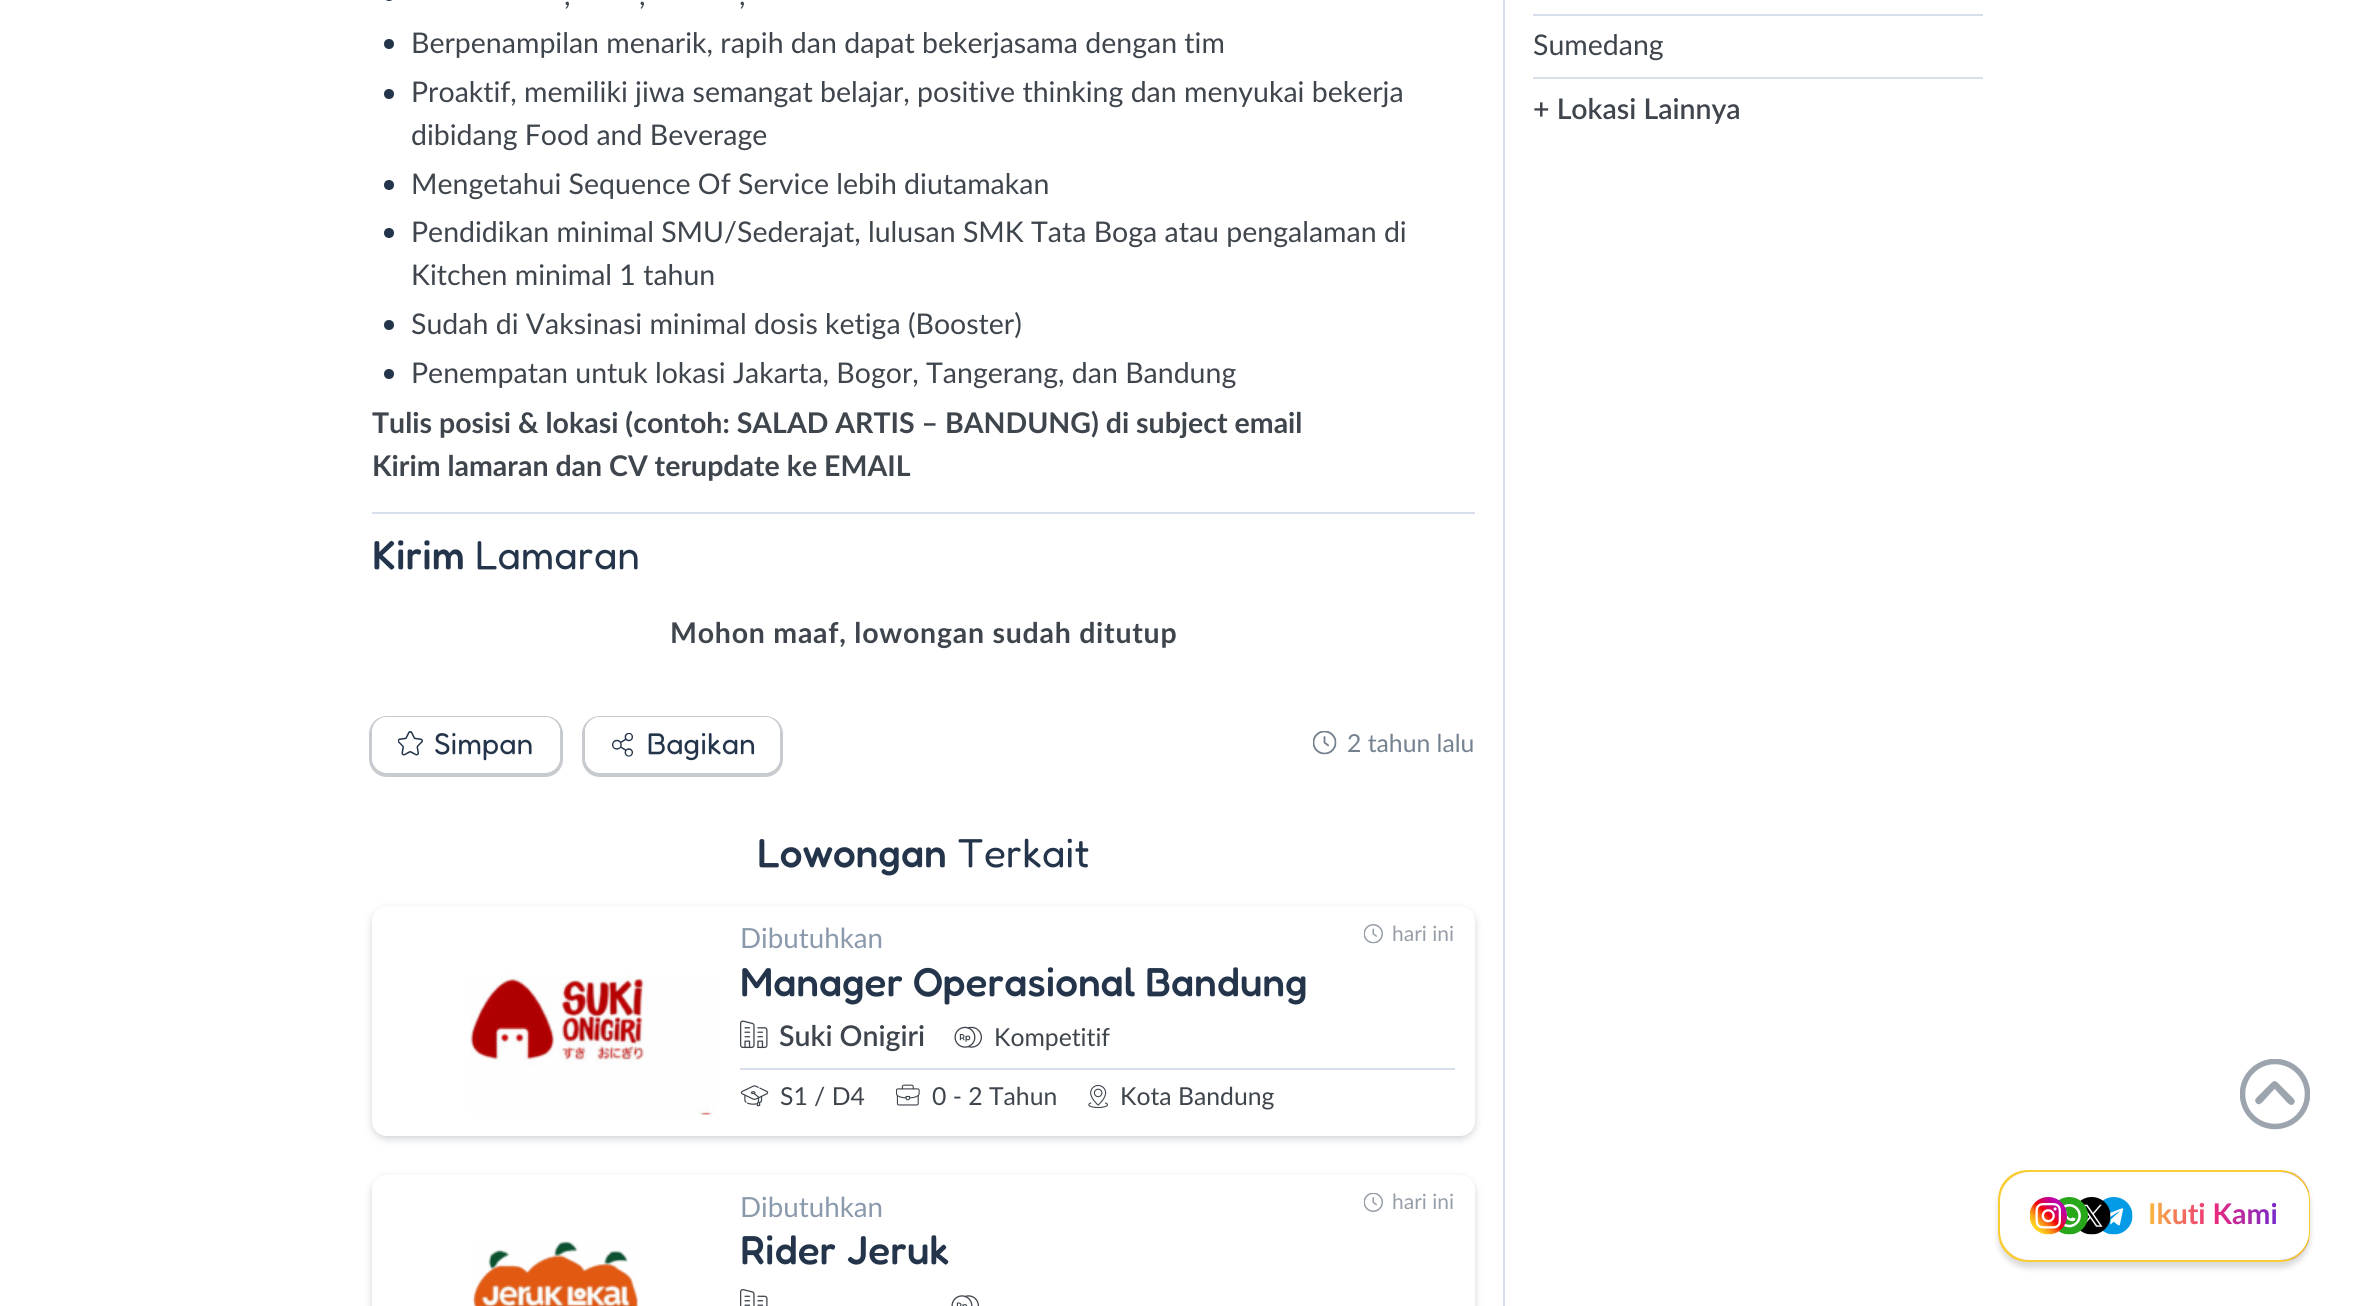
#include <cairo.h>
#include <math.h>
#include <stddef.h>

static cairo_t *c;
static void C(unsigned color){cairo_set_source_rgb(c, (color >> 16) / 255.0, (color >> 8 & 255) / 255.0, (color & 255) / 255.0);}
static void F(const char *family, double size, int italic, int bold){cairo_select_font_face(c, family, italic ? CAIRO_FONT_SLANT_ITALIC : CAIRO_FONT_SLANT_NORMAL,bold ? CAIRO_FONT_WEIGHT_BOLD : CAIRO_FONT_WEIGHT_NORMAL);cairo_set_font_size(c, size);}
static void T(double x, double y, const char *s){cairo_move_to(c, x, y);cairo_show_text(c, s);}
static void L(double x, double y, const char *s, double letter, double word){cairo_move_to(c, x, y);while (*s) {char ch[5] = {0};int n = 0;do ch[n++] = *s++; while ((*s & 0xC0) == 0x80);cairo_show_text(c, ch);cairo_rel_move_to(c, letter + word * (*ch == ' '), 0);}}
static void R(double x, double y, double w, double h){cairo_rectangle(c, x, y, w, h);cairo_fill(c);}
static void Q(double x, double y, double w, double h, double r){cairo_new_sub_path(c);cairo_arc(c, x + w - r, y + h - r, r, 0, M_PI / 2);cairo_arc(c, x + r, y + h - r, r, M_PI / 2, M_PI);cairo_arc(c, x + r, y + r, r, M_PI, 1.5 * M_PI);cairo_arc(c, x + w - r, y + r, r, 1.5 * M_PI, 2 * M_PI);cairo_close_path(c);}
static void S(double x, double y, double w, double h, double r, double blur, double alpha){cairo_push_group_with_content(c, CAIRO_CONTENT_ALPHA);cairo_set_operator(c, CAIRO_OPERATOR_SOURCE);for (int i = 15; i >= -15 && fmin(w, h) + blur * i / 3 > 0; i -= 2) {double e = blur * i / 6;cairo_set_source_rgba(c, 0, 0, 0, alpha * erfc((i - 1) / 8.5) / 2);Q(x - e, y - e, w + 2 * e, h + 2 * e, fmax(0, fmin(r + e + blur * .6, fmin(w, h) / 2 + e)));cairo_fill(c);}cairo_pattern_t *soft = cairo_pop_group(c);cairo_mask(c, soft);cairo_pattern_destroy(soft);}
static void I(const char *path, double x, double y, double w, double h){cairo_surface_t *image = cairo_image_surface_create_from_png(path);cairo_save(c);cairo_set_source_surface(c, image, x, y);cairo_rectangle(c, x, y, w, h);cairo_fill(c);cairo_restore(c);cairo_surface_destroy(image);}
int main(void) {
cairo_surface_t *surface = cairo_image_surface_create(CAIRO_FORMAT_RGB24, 2354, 1306);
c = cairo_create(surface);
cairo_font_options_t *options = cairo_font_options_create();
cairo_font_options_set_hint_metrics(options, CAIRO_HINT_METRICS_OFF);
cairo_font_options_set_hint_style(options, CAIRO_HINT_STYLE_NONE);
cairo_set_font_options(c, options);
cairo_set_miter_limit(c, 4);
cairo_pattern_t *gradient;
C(0xffffff);
cairo_paint(c);
C(0xd7dfea);
R(1503,0,2,1306);
R(372,512,1103,2);
C(0x24354b);
cairo_arc(c,389,-4,5,0,2 * M_PI);
cairo_fill(c);
F("Lato",28.5,0,0);
C(0x3f454d);
T(564,5,",");
T(639,5,",");
T(739,5,",");
C(0x24354b);
cairo_new_path(c);
cairo_arc(c,389,44,5,0,2 * M_PI);
cairo_fill(c);
C(0x3f454d);
T(411,53,"Berpenampilan menarik, rapih dan dapat bekerjasama dengan tim");
C(0x24354b);
cairo_new_path(c);
cairo_arc(c,389,94,5,0,2 * M_PI);
cairo_fill(c);
C(0x3f454d);
T(411,102,"Proaktif, memiliki jiwa semangat belajar, positive thinking dan menyukai bekerja");
T(411,145,"dibidang Food and Beverage");
C(0x24354b);
cairo_new_path(c);
cairo_arc(c,389,185,5,0,2 * M_PI);
cairo_fill(c);
C(0x3f454d);
T(411,194,"Mengetahui Sequence Of Service lebih diutamakan");
C(0x24354b);
cairo_new_path(c);
cairo_arc(c,389,233,5,0,2 * M_PI);
cairo_fill(c);
C(0x3f454d);
T(411,242,"Pendidikan minimal SMU/Sederajat, lulusan SMK Tata Boga atau pengalaman di");
T(411,285,"Kitchen minimal 1 tahun");
C(0x24354b);
cairo_new_path(c);
cairo_arc(c,389,325,5,0,2 * M_PI);
cairo_fill(c);
C(0x3f454d);
T(411,334,"Sudah di Vaksinasi minimal dosis ketiga (Booster)");
C(0x24354b);
cairo_new_path(c);
cairo_arc(c,389,374,5,0,2 * M_PI);
cairo_fill(c);
C(0x3f454d);
T(411,383,"Penempatan untuk lokasi Jakarta, Bogor, Tangerang, dan Bandung");
F("Lato",28.5,0,1);
T(372,433,"Tulis posisi & lokasi (contoh: SALAD ARTIS – BANDUNG) di subject email");
T(372,476,"Kirim lamaran dan CV terupdate ke EMAIL");
F("Fredoka Medium",40.5,0,0);
C(0x24354b);
T(372,569,"Kirim");
F("Fredoka",40.5,0,0);
T(475,569,"Lamaran");
F("Lato",28.5,0,1);
C(0x3f454d);
L(670,643,"Mohon maaf, lowongan sudah ditutup",.75,0);
C(0xc7cbd0);
cairo_set_fill_rule(c,CAIRO_FILL_RULE_EVEN_ODD);
cairo_new_path(c);
cairo_move_to(c,387,716);
cairo_curve_to(c,377,716,369,724,369,734);
cairo_line_to(c,369,759);
cairo_curve_to(c,369,769,377,777,387,777);
cairo_line_to(c,545,777);
cairo_curve_to(c,555,777,563,769,563,759);
cairo_line_to(c,563,734);
cairo_curve_to(c,563,724,555,716,545,716);
cairo_close_path(c);
cairo_move_to(c,387,717);
cairo_curve_to(c,379,717,372,724,372,732);
cairo_line_to(c,372,758);
cairo_curve_to(c,372,766,379,772,387,772);
cairo_line_to(c,544,772);
cairo_curve_to(c,553,772,560,766,560,758);
cairo_line_to(c,560,732);
cairo_curve_to(c,560,724,553,717,544,717);
cairo_close_path(c);
cairo_fill(c);
C(0xffffff);
Q(372,717,188,56,15);
cairo_fill(c);
I("1.png",398,731,25,25);
F("Fredoka",30,0,0);
C(0x24354b);
T(434,754,"Simpan");
C(0xc7cbd0);
cairo_new_path(c);
cairo_move_to(c,600,716);
cairo_curve_to(c,590,716,582,724,582,734);
cairo_line_to(c,582,759);
cairo_curve_to(c,582,769,590,777,600,777);
cairo_line_to(c,765,777);
cairo_curve_to(c,775,777,783,769,783,759);
cairo_line_to(c,783,734);
cairo_curve_to(c,783,724,775,716,765,716);
cairo_close_path(c);
cairo_move_to(c,600,717);
cairo_curve_to(c,592,717,585,724,585,732);
cairo_line_to(c,585,758);
cairo_curve_to(c,585,766,592,772,600,772);
cairo_line_to(c,765,772);
cairo_curve_to(c,773,772,780,766,780,758);
cairo_line_to(c,780,732);
cairo_curve_to(c,780,724,773,717,765,717);
cairo_close_path(c);
cairo_fill(c);
C(0xffffff);
Q(585,717,195,56,15);
cairo_fill(c);
I("2.png",612,732,22,25);
C(0x24354b);
T(647,754,"Bagikan");
I("3.png",1313,731,24,24);
F("Lato",24.75,0,0);
C(0x74818f);
T(1347,752,"2 tahun lalu");
F("Fredoka Medium",40.5,0,0);
C(0x24354b);
T(757,867,"Lowongan");
F("Fredoka",40.5,0,0);
T(957,867,"Terkait");
C(0x222f3f);
S(372,909,1103,230,15,4,.21);
C(0xffffff);
Q(372,906,1103,230,15);
cairo_fill(c);
I("4.png",470,975,245,140);
F("Lato",27.75,0,0);
C(0x8a99ab);
T(740,948,"Dibutuhkan");
I("5.png",1364,924,19,20);
F("Lato",21,0,0);
C(0x969ea8);
T(1392,941,"hari ini");
F("Fredoka Medium",40.5,0,0);
C(0x24354b);
T(740,996,"Manager Operasional Bandung");
C(0xd7dfea);
R(740,1068,715,2);
I("6.png",740,1020,28,29);
F("Lato SemiBold",28.5,0,0);
C(0x3f454d);
T(779,1046,"Suki Onigiri");
I("7.png",954,1026,28,22);
F("Lato",24.75,0,0);
T(994,1046,"Kompetitif");
I("8.png",740,1085,29,22);
T(780,1105,"S1 / D4");
I("9.png",896,1084,24,22);
T(932,1105,"0 - 2 Tahun");
I("10.png",1088,1084,20,25);
T(1120,1105,"Kota Bandung");
C(0x222f3f);
S(372,1178,1103,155,15,4,.21);
C(0xffffff);
Q(372,1175,1103,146,15);
cairo_fill(c);
F("Lato",27.75,0,0);
C(0x8a99ab);
T(740,1217,"Dibutuhkan");
I("11.png",1364,1193,19,19);
F("Lato",21,0,0);
C(0x969ea8);
T(1392,1209,"hari ini");
F("Fredoka Medium",40.5,0,0);
C(0x24354b);
T(740,1264,"Rider Jeruk");
I("12.png",740,1289,28,17);
I("13.png",951,1295,28,11);
I("14.png",472,1241,166,65);
C(0xd7dfea);
R(1533,14,450,2);
R(1533,77,450,2);
F("Lato",28.5,0,0);
C(0x3f454d);
T(1533,55,"Sumedang");
F("Lato SemiBold",28.5,0,0);
T(1533,119,"+ Lokasi Lainnya");
I("15.png",2240,1059,70,71);
C(0x000000);
S(1998,1176,312,92,30,3,.15);
cairo_save(c);
cairo_set_fill_rule(c,CAIRO_FILL_RULE_WINDING);
Q(1998,1170,312,92,30);
cairo_clip(c);
gradient = cairo_pattern_create_linear(1997,1205,2311,1227);
cairo_pattern_add_color_stop_rgba(gradient,0,0.976,0.808,0.204,1);
cairo_pattern_add_color_stop_rgba(gradient,.5,0.933,0.165,0.482,1);
cairo_pattern_add_color_stop_rgba(gradient,1,0.384,0.157,0.843,1);
cairo_set_source(c,gradient);
cairo_pattern_destroy(gradient);
R(2000,1172,309,88);
cairo_restore(c);
Q(1999,1171,310,90,29);
C(0xf9ce34);
cairo_stroke(c);
C(0xffffff);
Q(2000,1172,309,88,29);
cairo_fill(c);
I("16.png",2030,1197,103,38);
F("Lato",28.5,0,1);
gradient = cairo_pattern_create_linear(2148,1217,2278,1217);
cairo_pattern_add_color_stop_rgba(gradient,0,0.973,0.729,0.239,1);
cairo_pattern_add_color_stop_rgba(gradient,.5,0.929,0.165,0.486,1);
cairo_pattern_add_color_stop_rgba(gradient,1,0.459,0.161,0.796,1);
cairo_set_source(c,gradient);
cairo_pattern_destroy(gradient);
T(2148,1224,"Ikuti Kami");
cairo_surface_write_to_png(surface, "o.png");
cairo_font_options_destroy(options);
cairo_destroy(c);
cairo_surface_destroy(surface);
return 0;
}
